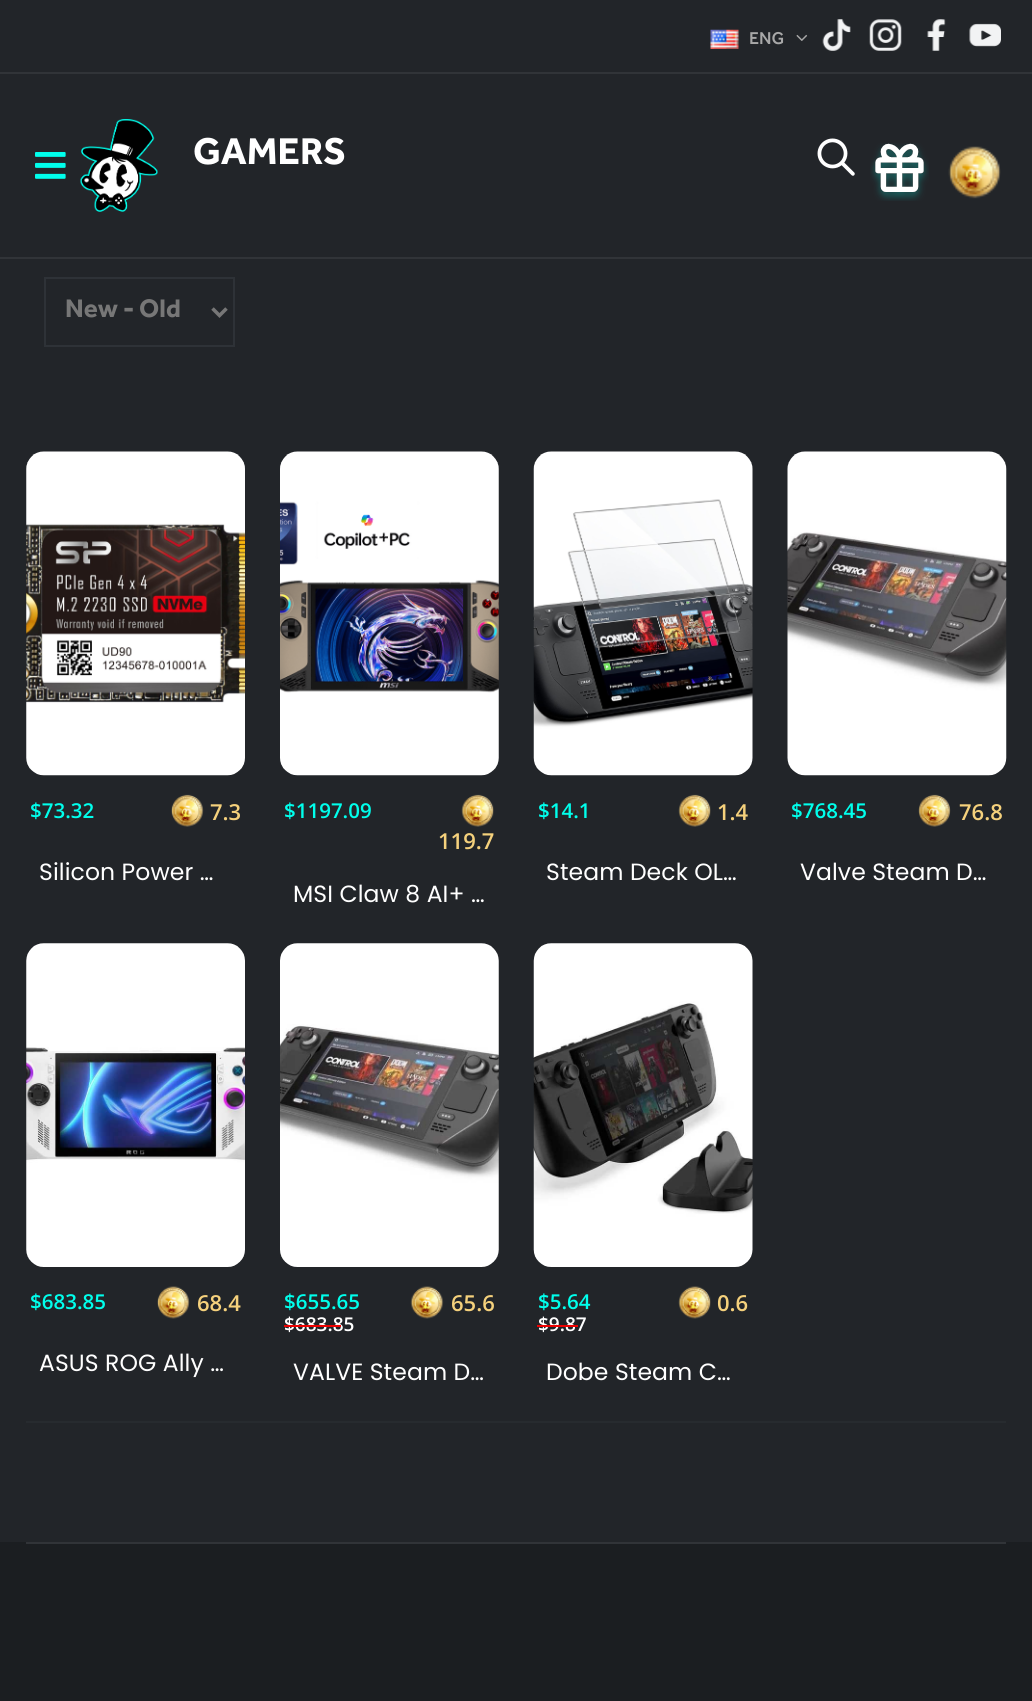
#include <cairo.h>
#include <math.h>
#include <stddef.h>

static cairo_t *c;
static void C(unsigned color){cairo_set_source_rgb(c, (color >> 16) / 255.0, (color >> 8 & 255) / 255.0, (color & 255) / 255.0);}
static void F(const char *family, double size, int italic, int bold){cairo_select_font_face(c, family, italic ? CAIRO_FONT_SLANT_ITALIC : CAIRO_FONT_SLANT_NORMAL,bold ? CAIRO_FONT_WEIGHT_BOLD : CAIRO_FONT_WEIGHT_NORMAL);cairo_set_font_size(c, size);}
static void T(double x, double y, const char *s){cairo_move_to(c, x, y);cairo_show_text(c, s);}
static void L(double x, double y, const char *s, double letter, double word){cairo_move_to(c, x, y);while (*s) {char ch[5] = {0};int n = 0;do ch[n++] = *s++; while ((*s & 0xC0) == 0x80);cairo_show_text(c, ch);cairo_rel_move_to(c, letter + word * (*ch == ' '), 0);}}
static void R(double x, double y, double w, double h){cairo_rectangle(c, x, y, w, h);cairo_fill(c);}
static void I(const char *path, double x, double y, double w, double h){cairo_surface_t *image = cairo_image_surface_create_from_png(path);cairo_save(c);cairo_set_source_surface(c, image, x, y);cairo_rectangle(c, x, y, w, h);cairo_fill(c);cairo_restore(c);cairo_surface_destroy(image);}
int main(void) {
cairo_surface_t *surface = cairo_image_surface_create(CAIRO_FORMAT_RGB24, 1032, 1701);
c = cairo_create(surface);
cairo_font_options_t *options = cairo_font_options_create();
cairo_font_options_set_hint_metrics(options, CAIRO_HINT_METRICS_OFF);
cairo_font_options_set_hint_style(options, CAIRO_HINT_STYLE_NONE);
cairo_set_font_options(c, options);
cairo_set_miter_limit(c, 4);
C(0x222529);
cairo_paint(c);
C(0x313438);
R(0,257,1032,2);
I("1.png",710,29,29,20);
F("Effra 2",17,0,1);
C(0xa8a8a8);
L(749,44,"ENG",.5,0);
I("2.png",796,34,12,7);
I("3.png",822,19,29,32);
I("4.png",869,19,33,32);
I("5.png",927,19,19,32);
I("6.png",969,23,32,24);
C(0x313438);
R(0,72,1032,2);
I("7.png",35,152,31,27);
I("8.png",80,119,78,93);
F("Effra",38.5,0,1);
C(0xffffff);
T(193,164,"GAMERS");
I("9.png",817,138,38,38);
I("10.png",870,143,59,58);
I("11.png",948,146,53,53);
cairo_rectangle(c,45,278,189,68);
C(0x2e3237);
cairo_stroke(c);
cairo_new_path(c);
cairo_move_to(c,212.5,308.5);
cairo_line_to(c,219.5,315.5);
cairo_line_to(c,226.5,308.5);
C(0x777777);
cairo_set_line_width(c,3.5);
cairo_stroke(c);
F("Effra",26.25,0,1);
T(65,317,"New - Old");
I("12.png",26,451,219,325);
F("Open Sans SemiBold",20.5,0,0);
C(0x00ffec);
T(30,818,"$73.32");
I("13.png",171,794,33,33);
F("Open Sans SemiBold",22,0,0);
C(0xf5d17c);
T(210,820,"7.3");
F("Poppins",23.5,0,0);
C(0xffffff);
L(39,880,"Silicon Power …",.1,0);
I("14.png",280,451,219,325);
F("Open Sans SemiBold",20.5,0,0);
C(0x00ffec);
T(284,818,"$1197.09");
I("15.png",461,794,33,33);
F("Open Sans SemiBold",22,0,0);
C(0xf5d17c);
T(438,849,"119.7");
F("Poppins",23.5,0,0);
C(0xffffff);
L(293,902,"MSI Claw 8 AI+ …",.1,0);
I("16.png",533,451,220,325);
F("Open Sans SemiBold",20.5,0,0);
C(0x00ffec);
T(538,818,"$14.1");
I("17.png",678,794,33,33);
F("Open Sans SemiBold",22,0,0);
C(0xf5d17c);
T(717,820,"1.4");
F("Poppins",23.5,0,0);
C(0xffffff);
L(546,880,"Steam Deck OL…",.1,0);
I("18.png",787,451,220,325);
F("Open Sans SemiBold",20.5,0,0);
C(0x00ffec);
T(791,818,"$768.45");
I("19.png",918,794,33,33);
F("Open Sans SemiBold",22,0,0);
C(0xf5d17c);
T(959,820,"76.8");
F("Poppins",23.5,0,0);
C(0xffffff);
L(800,880,"Valve Steam D…",.1,0);
I("20.png",26,943,219,324);
F("Open Sans SemiBold",20.5,0,0);
C(0x00ffec);
T(30,1309,"$683.85");
I("21.png",157,1286,33,33);
F("Open Sans SemiBold",22,0,0);
C(0xf5d17c);
T(197,1311,"68.4");
F("Poppins",23.5,0,0);
C(0xffffff);
L(39,1371,"ASUS ROG Ally …",.1,0);
I("22.png",280,943,219,324);
F("Open Sans SemiBold",20.5,0,0);
C(0x00ffec);
T(284,1309,"$655.65");
F("Open Sans SemiBold",19,0,0);
C(0xffffff);
T(284,1331,"$683.85");
C(0xed0101);
R(284,1325,57,2);
I("23.png",410,1286,34,33);
F("Open Sans SemiBold",22,0,0);
C(0xf5d17c);
T(451,1311,"65.6");
F("Poppins",23.5,0,0);
C(0xffffff);
L(293,1380,"VALVE Steam D…",.1,0);
I("24.png",533,943,220,324);
F("Open Sans SemiBold",20.5,0,0);
C(0x00ffec);
T(538,1309,"$5.64");
F("Open Sans SemiBold",19,0,0);
C(0xffffff);
T(538,1331,"$9.87");
C(0xed0101);
R(537,1325,41,2);
I("25.png",678,1286,33,33);
F("Open Sans SemiBold",22,0,0);
C(0xf5d17c);
T(717,1311,"0.6");
F("Poppins",23.5,0,0);
C(0xffffff);
L(546,1380,"Dobe Steam C…",.1,0);
C(0x272b2f);
R(26,1421,980,2);
C(0x1b1e21);
R(0,1542,1032,159);
C(0x313438);
R(26,1542,980,2);
cairo_surface_write_to_png(surface, "o.png");
cairo_font_options_destroy(options);
cairo_destroy(c);
cairo_surface_destroy(surface);
return 0;
}
